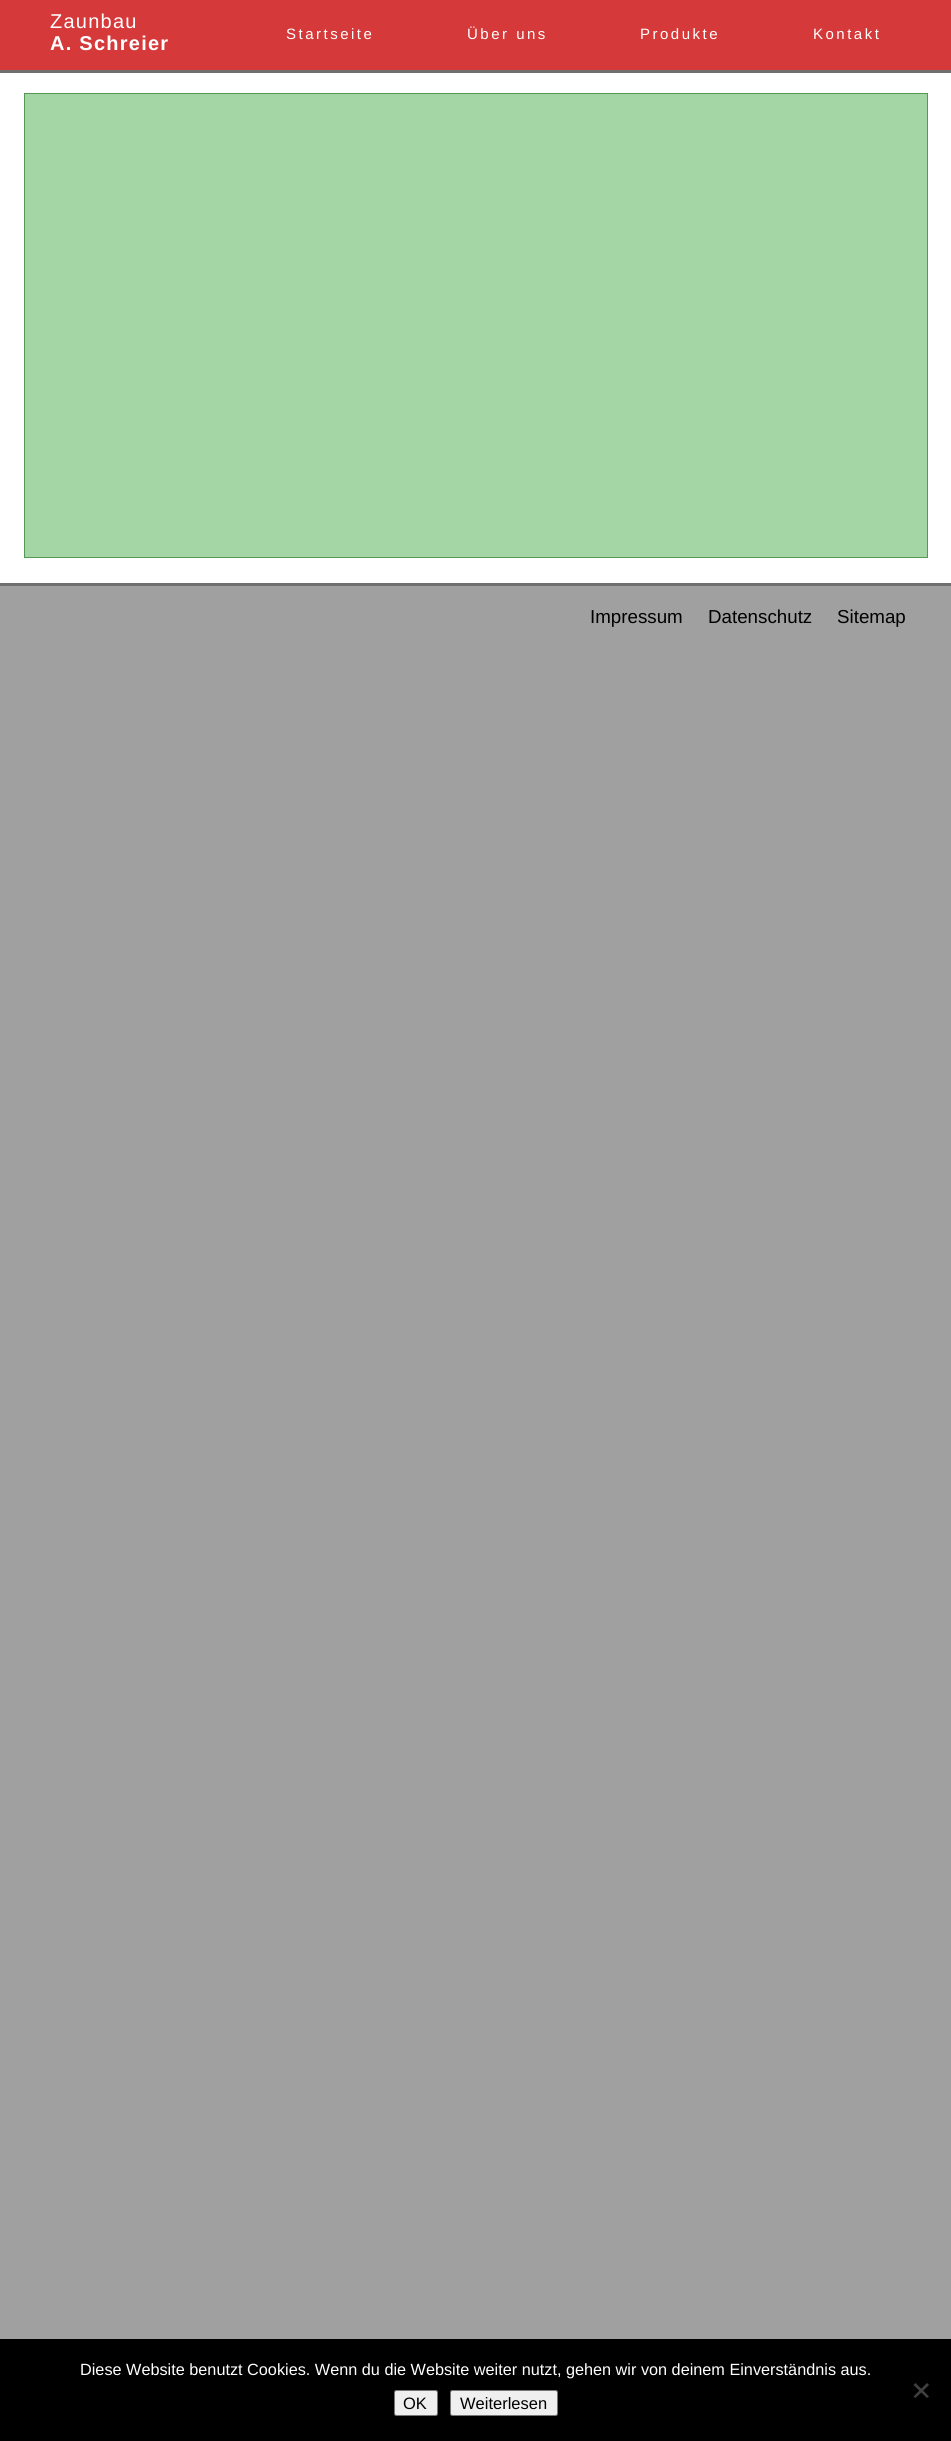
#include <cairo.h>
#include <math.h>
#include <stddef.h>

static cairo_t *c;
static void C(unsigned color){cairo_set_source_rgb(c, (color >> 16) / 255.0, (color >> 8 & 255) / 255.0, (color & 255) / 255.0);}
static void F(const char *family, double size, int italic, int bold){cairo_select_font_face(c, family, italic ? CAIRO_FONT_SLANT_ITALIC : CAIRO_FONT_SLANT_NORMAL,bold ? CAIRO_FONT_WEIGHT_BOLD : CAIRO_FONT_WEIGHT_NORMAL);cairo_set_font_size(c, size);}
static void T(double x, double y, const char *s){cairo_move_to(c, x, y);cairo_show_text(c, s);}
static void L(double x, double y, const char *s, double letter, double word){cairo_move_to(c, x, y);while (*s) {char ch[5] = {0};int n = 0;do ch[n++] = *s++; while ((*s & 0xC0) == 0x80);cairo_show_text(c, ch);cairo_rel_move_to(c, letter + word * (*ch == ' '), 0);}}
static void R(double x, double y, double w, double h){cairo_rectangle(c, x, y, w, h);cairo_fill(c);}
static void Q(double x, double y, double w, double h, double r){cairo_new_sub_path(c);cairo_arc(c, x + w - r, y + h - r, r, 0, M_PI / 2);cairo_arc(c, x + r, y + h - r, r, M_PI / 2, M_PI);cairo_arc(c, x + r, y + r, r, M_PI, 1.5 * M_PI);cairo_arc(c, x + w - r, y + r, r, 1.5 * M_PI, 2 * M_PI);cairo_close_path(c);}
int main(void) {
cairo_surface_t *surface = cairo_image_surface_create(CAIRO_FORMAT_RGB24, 951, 2441);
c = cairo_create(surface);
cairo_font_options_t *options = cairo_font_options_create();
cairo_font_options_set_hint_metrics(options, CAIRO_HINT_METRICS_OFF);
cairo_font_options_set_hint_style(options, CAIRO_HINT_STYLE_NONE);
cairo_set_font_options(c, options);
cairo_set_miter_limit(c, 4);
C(0xa0a0a0);
cairo_paint(c);
C(0xd53939);
R(0,0,951,70);
F("Liberation Sans",20,0,0);
C(0xffffff);
L(50,28,"Zaunbau",1.25,0);
F("Liberation Sans",20,0,1);
L(50,50,"A. Schreier",1.25,0);
F("Liberation Sans",15,0,0);
L(286,39,"Startseite",2.5,0);
L(467,39,"Über uns",2.5,0);
L(640,39,"Produkte",2.5,0);
L(813,39,"Kontakt",2.5,0);
C(0x6f6f6f);
R(0,70,951,3);
C(0xffffff);
R(0,73,951,510);
C(0x6f6f6f);
R(0,583,951,3);
C(0xa4d5a4);
cairo_rectangle(c,24.5,93.5,903,464);
cairo_fill_preserve(c);
C(0x539853);
cairo_set_line_width(c,1);
cairo_stroke(c);
F("Liberation Sans",18.75,0,0);
C(0x000000);
T(590,623,"Impressum");
T(708,623,"Datenschutz");
T(837,623,"Sitemap");
R(0,2339,951,102);
F("Liberation Sans",16.25,0,0);
C(0xffffff);
T(80,2375,"Diese Website benutzt Cookies. Wenn du die Website weiter nutzt, gehen wir von deinem Einverständnis aus.");
C(0x404040);
cairo_new_path(c);
cairo_move_to(c,927,2383);
cairo_line_to(c,929,2385);
cairo_line_to(c,915.5,2398);
cairo_line_to(c,913.5,2396.5);
cairo_close_path(c);
cairo_fill(c);
cairo_new_path(c);
cairo_move_to(c,913.5,2385);
cairo_line_to(c,915.5,2383);
cairo_line_to(c,929,2396.5);
cairo_line_to(c,927,2398);
cairo_close_path(c);
cairo_fill(c);
C(0xefefef);
Q(394.5,2390.5,43,25,2);
cairo_fill_preserve(c);
C(0x767676);
cairo_stroke(c);
F("Liberation Sans",16.5,0,0);
C(0x000000);
T(403,2409,"OK");
C(0xefefef);
Q(450.5,2390.5,107,25,2);
cairo_fill_preserve(c);
C(0x767676);
cairo_stroke(c);
C(0x000000);
T(460,2409,"Weiterlesen");
cairo_surface_write_to_png(surface, "o.png");
cairo_font_options_destroy(options);
cairo_destroy(c);
cairo_surface_destroy(surface);
return 0;
}
